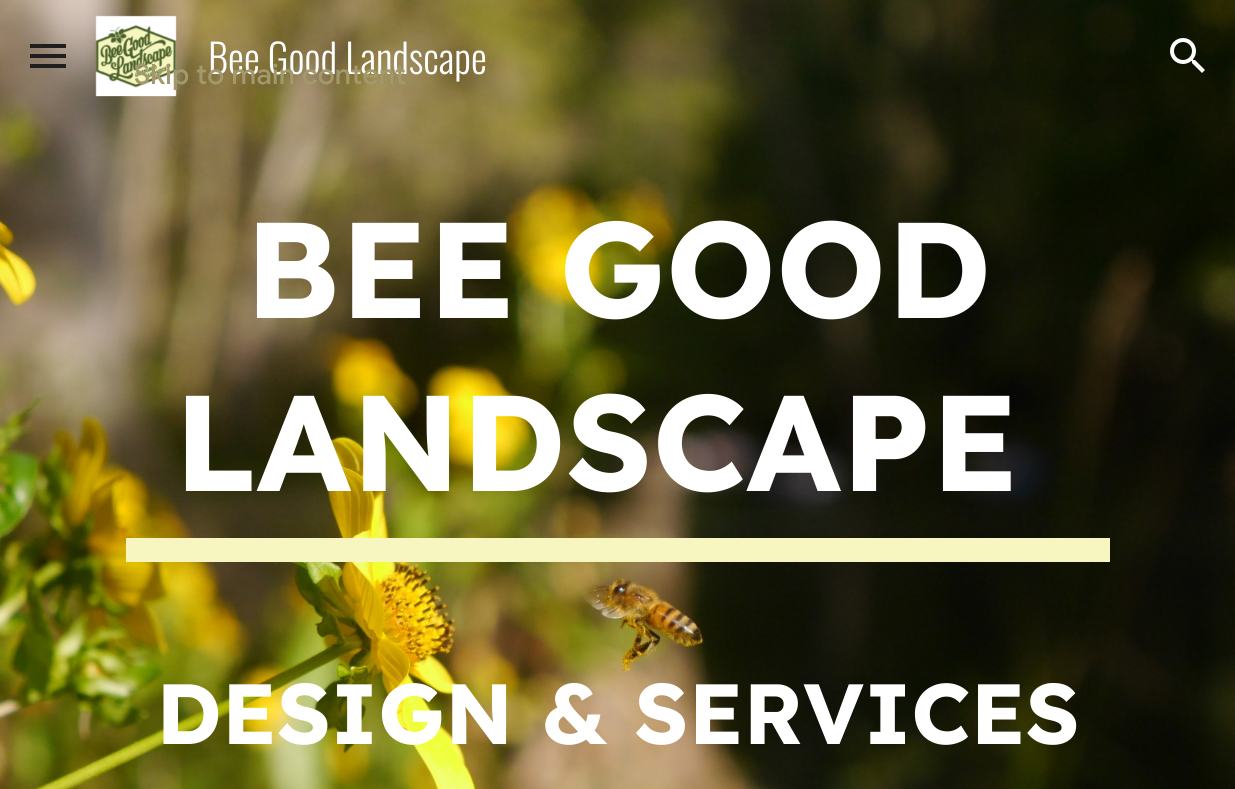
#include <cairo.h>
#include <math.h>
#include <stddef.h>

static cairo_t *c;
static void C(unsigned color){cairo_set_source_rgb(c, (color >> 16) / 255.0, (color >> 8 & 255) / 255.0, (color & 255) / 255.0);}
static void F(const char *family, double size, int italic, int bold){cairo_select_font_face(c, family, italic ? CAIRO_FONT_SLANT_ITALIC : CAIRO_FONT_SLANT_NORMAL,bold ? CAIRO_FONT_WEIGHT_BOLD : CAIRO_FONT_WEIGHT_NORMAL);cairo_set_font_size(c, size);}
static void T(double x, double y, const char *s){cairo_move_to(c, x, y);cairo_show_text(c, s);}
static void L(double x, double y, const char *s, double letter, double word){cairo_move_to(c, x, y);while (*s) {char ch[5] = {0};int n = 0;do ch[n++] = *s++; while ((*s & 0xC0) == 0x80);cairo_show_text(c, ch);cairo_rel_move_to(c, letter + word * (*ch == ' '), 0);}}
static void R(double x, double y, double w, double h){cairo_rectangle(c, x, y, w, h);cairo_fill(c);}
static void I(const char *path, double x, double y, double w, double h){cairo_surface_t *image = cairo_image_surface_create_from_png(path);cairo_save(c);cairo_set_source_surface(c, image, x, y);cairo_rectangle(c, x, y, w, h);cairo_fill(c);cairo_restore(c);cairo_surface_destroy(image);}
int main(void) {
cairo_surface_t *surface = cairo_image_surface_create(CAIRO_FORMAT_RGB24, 1235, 789);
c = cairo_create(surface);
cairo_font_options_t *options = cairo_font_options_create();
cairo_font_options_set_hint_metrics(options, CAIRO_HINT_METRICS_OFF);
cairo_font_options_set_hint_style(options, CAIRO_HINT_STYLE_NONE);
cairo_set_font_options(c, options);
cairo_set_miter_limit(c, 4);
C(0xffffff);
cairo_paint(c);
I("3.png",0,0,1235,789);
C(0x1f1f1f);
R(30,44,36,4);
R(30,54,36,4);
R(30,64,36,4);
I("1.png",95,15,82,82);
F("Oswald Light",40,0,0);
C(0xffffff);
T(208,74,"Bee Good Landscape");
I("2.png",1170,38,35,35);
F("Lexend",136,0,1);
T(245,318,"BEE GOOD");
T(174,491,"LANDSCAPE");
C(0xf7f5c0);
R(126,538,984,24);
F("Lexend",85.25,0,1);
C(0xffffff);
T(156,744,"DESIGN & SERVICES");
F("Google Sans Medium",28,0,0);
C(0xa3996d);
L(134,84,"Skip to main content",.25,0);
cairo_surface_write_to_png(surface, "o.png");
cairo_font_options_destroy(options);
cairo_destroy(c);
cairo_surface_destroy(surface);
return 0;
}
